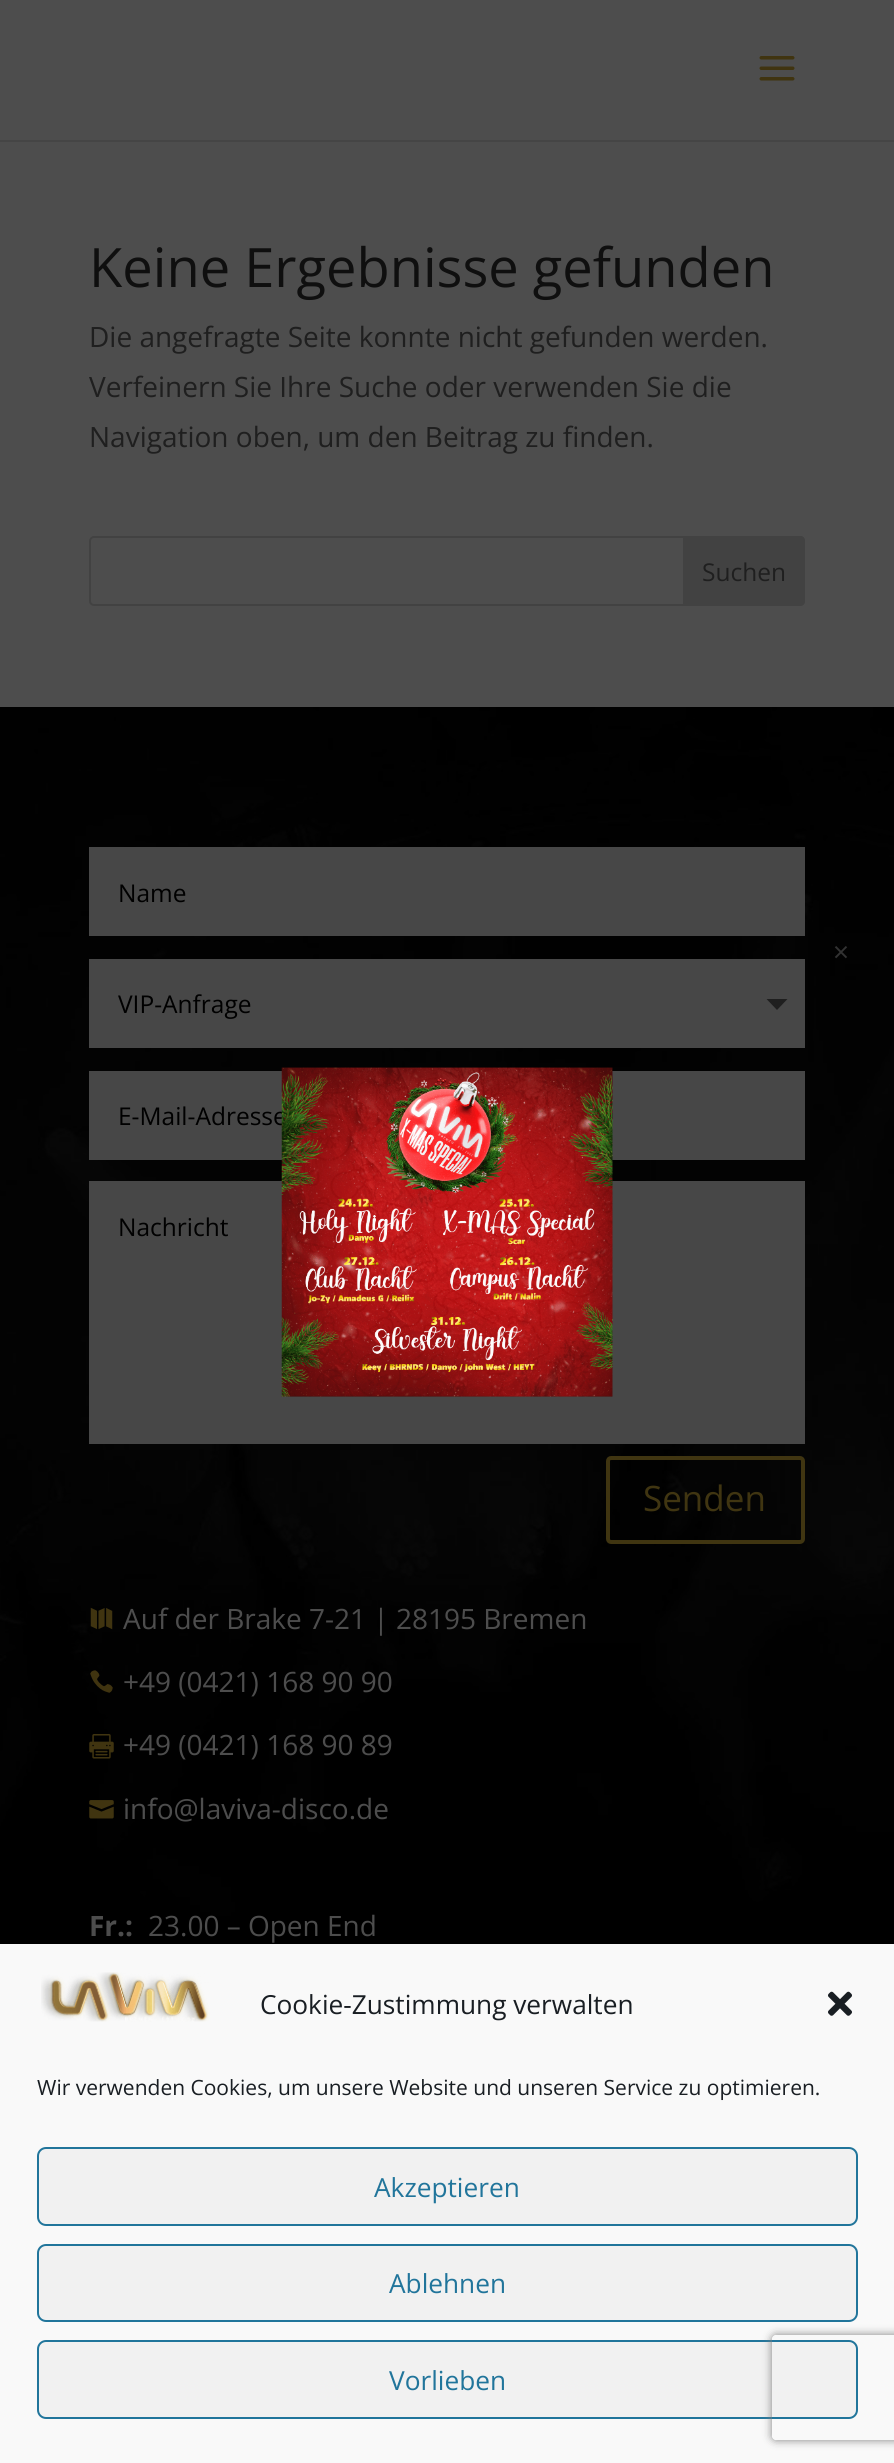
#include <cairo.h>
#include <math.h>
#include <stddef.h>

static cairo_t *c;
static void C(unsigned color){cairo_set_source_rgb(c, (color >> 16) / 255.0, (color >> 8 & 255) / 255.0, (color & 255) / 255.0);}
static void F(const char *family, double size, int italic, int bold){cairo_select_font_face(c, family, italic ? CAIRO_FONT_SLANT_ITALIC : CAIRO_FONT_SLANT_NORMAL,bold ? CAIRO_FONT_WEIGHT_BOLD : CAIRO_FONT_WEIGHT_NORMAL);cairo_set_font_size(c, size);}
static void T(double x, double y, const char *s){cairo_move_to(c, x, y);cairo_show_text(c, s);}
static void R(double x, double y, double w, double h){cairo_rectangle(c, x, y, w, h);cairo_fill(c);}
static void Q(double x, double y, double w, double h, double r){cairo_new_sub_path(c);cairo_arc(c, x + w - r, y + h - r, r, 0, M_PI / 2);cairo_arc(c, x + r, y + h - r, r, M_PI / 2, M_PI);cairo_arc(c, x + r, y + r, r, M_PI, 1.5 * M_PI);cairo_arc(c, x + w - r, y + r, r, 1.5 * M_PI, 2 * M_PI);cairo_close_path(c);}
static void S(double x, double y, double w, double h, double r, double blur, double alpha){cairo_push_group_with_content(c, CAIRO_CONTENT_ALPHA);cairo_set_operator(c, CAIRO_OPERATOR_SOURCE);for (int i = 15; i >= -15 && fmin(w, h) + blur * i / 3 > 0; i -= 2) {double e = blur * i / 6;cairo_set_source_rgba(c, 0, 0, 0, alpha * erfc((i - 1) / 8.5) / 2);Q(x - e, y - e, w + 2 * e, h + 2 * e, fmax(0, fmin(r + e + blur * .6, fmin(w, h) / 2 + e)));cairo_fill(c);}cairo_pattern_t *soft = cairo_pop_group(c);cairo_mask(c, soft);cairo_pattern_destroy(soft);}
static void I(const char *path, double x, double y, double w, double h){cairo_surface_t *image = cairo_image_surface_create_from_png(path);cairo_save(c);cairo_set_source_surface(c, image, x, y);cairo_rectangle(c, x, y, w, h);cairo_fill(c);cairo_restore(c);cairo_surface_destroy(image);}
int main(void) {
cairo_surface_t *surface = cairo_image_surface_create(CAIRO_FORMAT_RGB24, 894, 2463);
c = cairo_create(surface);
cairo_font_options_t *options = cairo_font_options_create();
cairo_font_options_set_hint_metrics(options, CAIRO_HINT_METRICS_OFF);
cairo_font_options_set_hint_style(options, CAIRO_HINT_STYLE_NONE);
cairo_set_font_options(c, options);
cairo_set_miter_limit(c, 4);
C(0x4d4d4d);
cairo_paint(c);
C(0x454545);
R(0,140,894,2);
I("1.png",759,56,36,25);
F("Open Sans",54.25,0,0);
C(0x0f0f0f);
T(89,287,"Keine Ergebnisse gefunden");
F("Open Sans",28,0,0);
C(0x1f1f1f);
T(89,347,"Die angefragte Seite konnte nicht gefunden werden.");
T(89,397,"Verfeinern Sie Ihre Suche oder verwenden Sie die");
T(89,447,"Navigation oben, um den Beitrag zu finden.");
Q(90,537,714,68,4);
C(0x424242);
cairo_stroke(c);
cairo_new_path(c);
cairo_move_to(c,683,536);
cairo_line_to(c,800,536);
cairo_curve_to(c,803,536,805,538,805,541);
cairo_line_to(c,805,601);
cairo_curve_to(c,805,604,803,606,800,606);
cairo_line_to(c,683,606);
cairo_close_path(c);
cairo_fill(c);
F("Open Sans",24.5,0,0);
C(0x1f1f1f);
T(702,581,"Suchen");
I("2.png",0,707,894,1237);
C(0x474747);
R(89,847,716,89);
C(0x000000);
T(118,902,"Name");
C(0x474747);
R(89,959,716,89);
C(0x000000);
T(118,1013,"VIP-Anfrage");
C(0x1f1f1f);
cairo_new_path(c);
cairo_move_to(c,766.5,999);
cairo_line_to(c,787.5,999);
cairo_line_to(c,777,1010);
cairo_close_path(c);
cairo_fill(c);
C(0x474747);
R(89,1071,716,89);
C(0x000000);
T(118,1125,"E-Mail-Adresse");
C(0x474747);
R(89,1181,716,263);
C(0x000000);
T(118,1236,"Nachricht");
Q(608,1458,195,84,3);
C(0x403511);
cairo_set_line_width(c,4);
cairo_stroke(c);
F("Open Sans",35,0,0);
T(643,1511,"Senden");
I("3.png",90,1607,23,23);
F("Open Sans",28,0,0);
C(0x4d4d4d);
T(123,1629,"Auf der Brake 7-21 | 28195 Bremen");
I("4.png",90,1670,23,23);
T(123,1692,"+49 (0421) 168 90 90");
I("5.png",89,1734,25,25);
T(123,1755,"+49 (0421) 168 90 89");
I("6.png",89,1800,25,19);
T(123,1819,"info@laviva-disco.de");
F("Open Sans",28,0,1);
T(89,1936,"Fr.:");
F("Open Sans",28,0,0);
T(148,1936,"23.00 – Open End");
C(0x333333);
T(833,962,"×");
I("7.png",281,1067,332,330);
C(0x000000);
S(0,1962,894,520,0,17.5,.19);
C(0xf9f9f9);
R(0,1944,894,519);
I("8.png",41,1972,169,50);
F("Open Sans",26.25,0,0);
C(0x191e23);
T(260,2014,"Cookie-Zustimmung verwalten");
I("9.png",828,1991,24,25);
F("Open Sans",21,0,0);
T(37,2095,"Wir verwenden Cookies, um unsere Website und unseren Service zu optimieren.");
C(0xf1f1f1);
Q(38,2148,819,77,8);
cairo_fill_preserve(c);
C(0x21759b);
cairo_set_line_width(c,2);
cairo_stroke(c);
F("Open Sans",26.25,0,0);
T(374,2197,"Akzeptieren");
C(0xf1f1f1);
Q(38,2245,819,76,8);
cairo_fill_preserve(c);
C(0x21759b);
cairo_stroke(c);
T(389,2293,"Ablehnen");
C(0xf1f1f1);
Q(38,2341,819,77,8);
cairo_fill_preserve(c);
C(0x21759b);
cairo_stroke(c);
T(389,2390,"Vorlieben");
cairo_save(c);
cairo_set_fill_rule(c,CAIRO_FILL_RULE_EVEN_ODD);
cairo_new_path(c);
cairo_move_to(c,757,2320);
cairo_line_to(c,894,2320);
cairo_line_to(c,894,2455);
cairo_line_to(c,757,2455);
cairo_close_path(c);
cairo_move_to(c,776,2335);
cairo_line_to(c,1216,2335);
cairo_curve_to(c,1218,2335,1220,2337,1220,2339);
cairo_line_to(c,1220,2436);
cairo_curve_to(c,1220,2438,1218,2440,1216,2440);
cairo_line_to(c,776,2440);
cairo_curve_to(c,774,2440,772,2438,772,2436);
cairo_line_to(c,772,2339);
cairo_curve_to(c,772,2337,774,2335,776,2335);
cairo_close_path(c);
cairo_clip(c);
C(0x808080);
S(772,2335,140,105,4,4.5,1);
cairo_restore(c);
cairo_surface_write_to_png(surface, "o.png");
cairo_font_options_destroy(options);
cairo_destroy(c);
cairo_surface_destroy(surface);
return 0;
}
